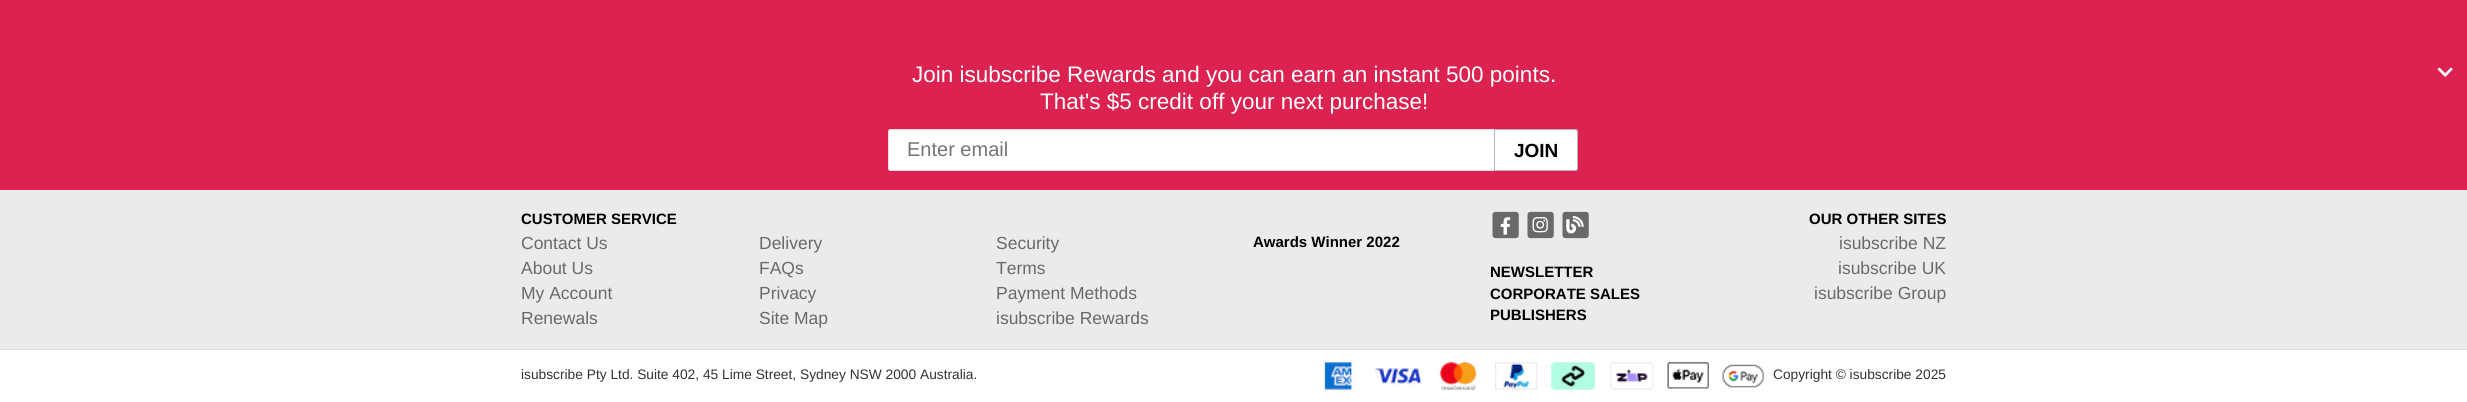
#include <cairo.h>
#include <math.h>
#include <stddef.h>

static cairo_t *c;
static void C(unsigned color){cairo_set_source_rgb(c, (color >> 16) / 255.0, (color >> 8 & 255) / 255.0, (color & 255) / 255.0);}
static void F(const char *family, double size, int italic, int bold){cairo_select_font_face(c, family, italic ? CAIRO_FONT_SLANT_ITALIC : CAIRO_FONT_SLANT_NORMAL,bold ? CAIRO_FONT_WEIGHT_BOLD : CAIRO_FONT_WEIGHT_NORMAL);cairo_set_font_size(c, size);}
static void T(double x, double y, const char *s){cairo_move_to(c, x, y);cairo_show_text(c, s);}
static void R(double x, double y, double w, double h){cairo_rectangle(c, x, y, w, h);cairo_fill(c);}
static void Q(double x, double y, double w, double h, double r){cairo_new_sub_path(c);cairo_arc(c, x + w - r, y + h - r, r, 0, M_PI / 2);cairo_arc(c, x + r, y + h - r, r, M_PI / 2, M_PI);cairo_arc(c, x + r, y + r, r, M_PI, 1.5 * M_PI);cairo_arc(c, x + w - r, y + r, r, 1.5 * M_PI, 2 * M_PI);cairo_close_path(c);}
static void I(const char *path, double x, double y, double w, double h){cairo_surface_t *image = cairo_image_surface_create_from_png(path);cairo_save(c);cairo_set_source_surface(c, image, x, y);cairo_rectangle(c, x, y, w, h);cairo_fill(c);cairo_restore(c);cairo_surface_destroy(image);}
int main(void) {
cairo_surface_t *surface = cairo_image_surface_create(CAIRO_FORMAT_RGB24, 2467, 402);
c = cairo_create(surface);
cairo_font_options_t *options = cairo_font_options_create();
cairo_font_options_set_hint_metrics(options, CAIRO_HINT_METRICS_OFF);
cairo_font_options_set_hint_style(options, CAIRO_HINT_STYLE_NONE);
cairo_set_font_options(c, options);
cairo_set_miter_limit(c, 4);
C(0xffffff);
cairo_paint(c);
C(0xdb2250);
R(0,0,2467,190);
F("Liberation Sans",22.5,0,0);
C(0xffffff);
T(912,82,"Join isubscribe Rewards and you can earn an instant 500 points.");
T(1040,109,"That's $5 credit off your next purchase!");
Q(888.5,129.5,607,41,2);
cairo_fill_preserve(c);
C(0xf9dae2);
cairo_set_line_width(c,1);
cairo_stroke(c);
F("Liberation Sans",20,0,0);
C(0x757575);
T(907,156,"Enter email");
C(0xffffff);
cairo_new_path(c);
cairo_move_to(c,1494.5,129.5);
cairo_line_to(c,1575.5,129.5);
cairo_curve_to(c,1576.5,129.5,1577.5,130.5,1577.5,131.5);
cairo_line_to(c,1577.5,168.5);
cairo_curve_to(c,1577.5,169.5,1576.5,170.5,1575.5,170.5);
cairo_line_to(c,1494.5,170.5);
cairo_close_path(c);
cairo_fill_preserve(c);
C(0xb7b7b7);
cairo_stroke(c);
F("Liberation Sans",19,0,1);
C(0x000000);
T(1514,157,"JOIN");
I("1.png",2437,67,16,10);
C(0xedebea);
R(0,190,2467,159);
C(0xe0e0e0);
R(0,349,2467,1);
F("Liberation Sans",15,0,1);
C(0x000000);
T(521,224,"CUSTOMER SERVICE");
F("Liberation Sans",17.5,0,0);
C(0x686a6a);
T(521,249,"Contact Us");
T(759,249,"Delivery");
T(996,249,"Security");
T(521,274,"About Us");
T(759,274,"FAQs");
T(996,274,"Terms");
T(521,299,"My Account");
T(759,299,"Privacy");
T(996,299,"Payment Methods");
T(521,324,"Renewals");
T(759,324,"Site Map");
T(996,324,"isubscribe Rewards");
F("Liberation Sans",15,0,1);
C(0x000000);
T(1253,247,"Awards Winner 2022");
T(1809,224,"OUR OTHER SITES");
F("Liberation Sans",17.5,0,0);
C(0x686a6a);
T(1839,249,"isubscribe NZ");
T(1838,274,"isubscribe UK");
T(1814,299,"isubscribe Group");
I("2.png",1492,211,27,28);
I("3.png",1500,217,11,18);
I("2.png",1527,211,27,28);
I("4.png",1532,217,16,16);
I("2.png",1562,211,27,28);
I("5.png",1566,216,18,18);
F("Liberation Sans",15,0,1);
C(0x000000);
T(1490,277,"NEWSLETTER");
T(1490,299,"CORPORATE SALES");
T(1490,320,"PUBLISHERS");
F("Liberation Sans",13.75,0,0);
C(0x333333);
T(521,379,"isubscribe Pty Ltd. Suite 402, 45 Lime Street, Sydney NSW 2000 Australia.");
I("6.png",1322,362,35,28);
I("7.png",1375,367,47,19);
I("8.png",1436,362,41,28);
I("9.png",1495,362,43,28);
I("10.png",1551,362,44,28);
I("11.png",1610,362,44,28);
I("12.png",1667,362,42,27);
I("13.png",1722,364,42,24);
T(1773,379,"Copyright © isubscribe 2025");
cairo_surface_write_to_png(surface, "o.png");
cairo_font_options_destroy(options);
cairo_destroy(c);
cairo_surface_destroy(surface);
return 0;
}
